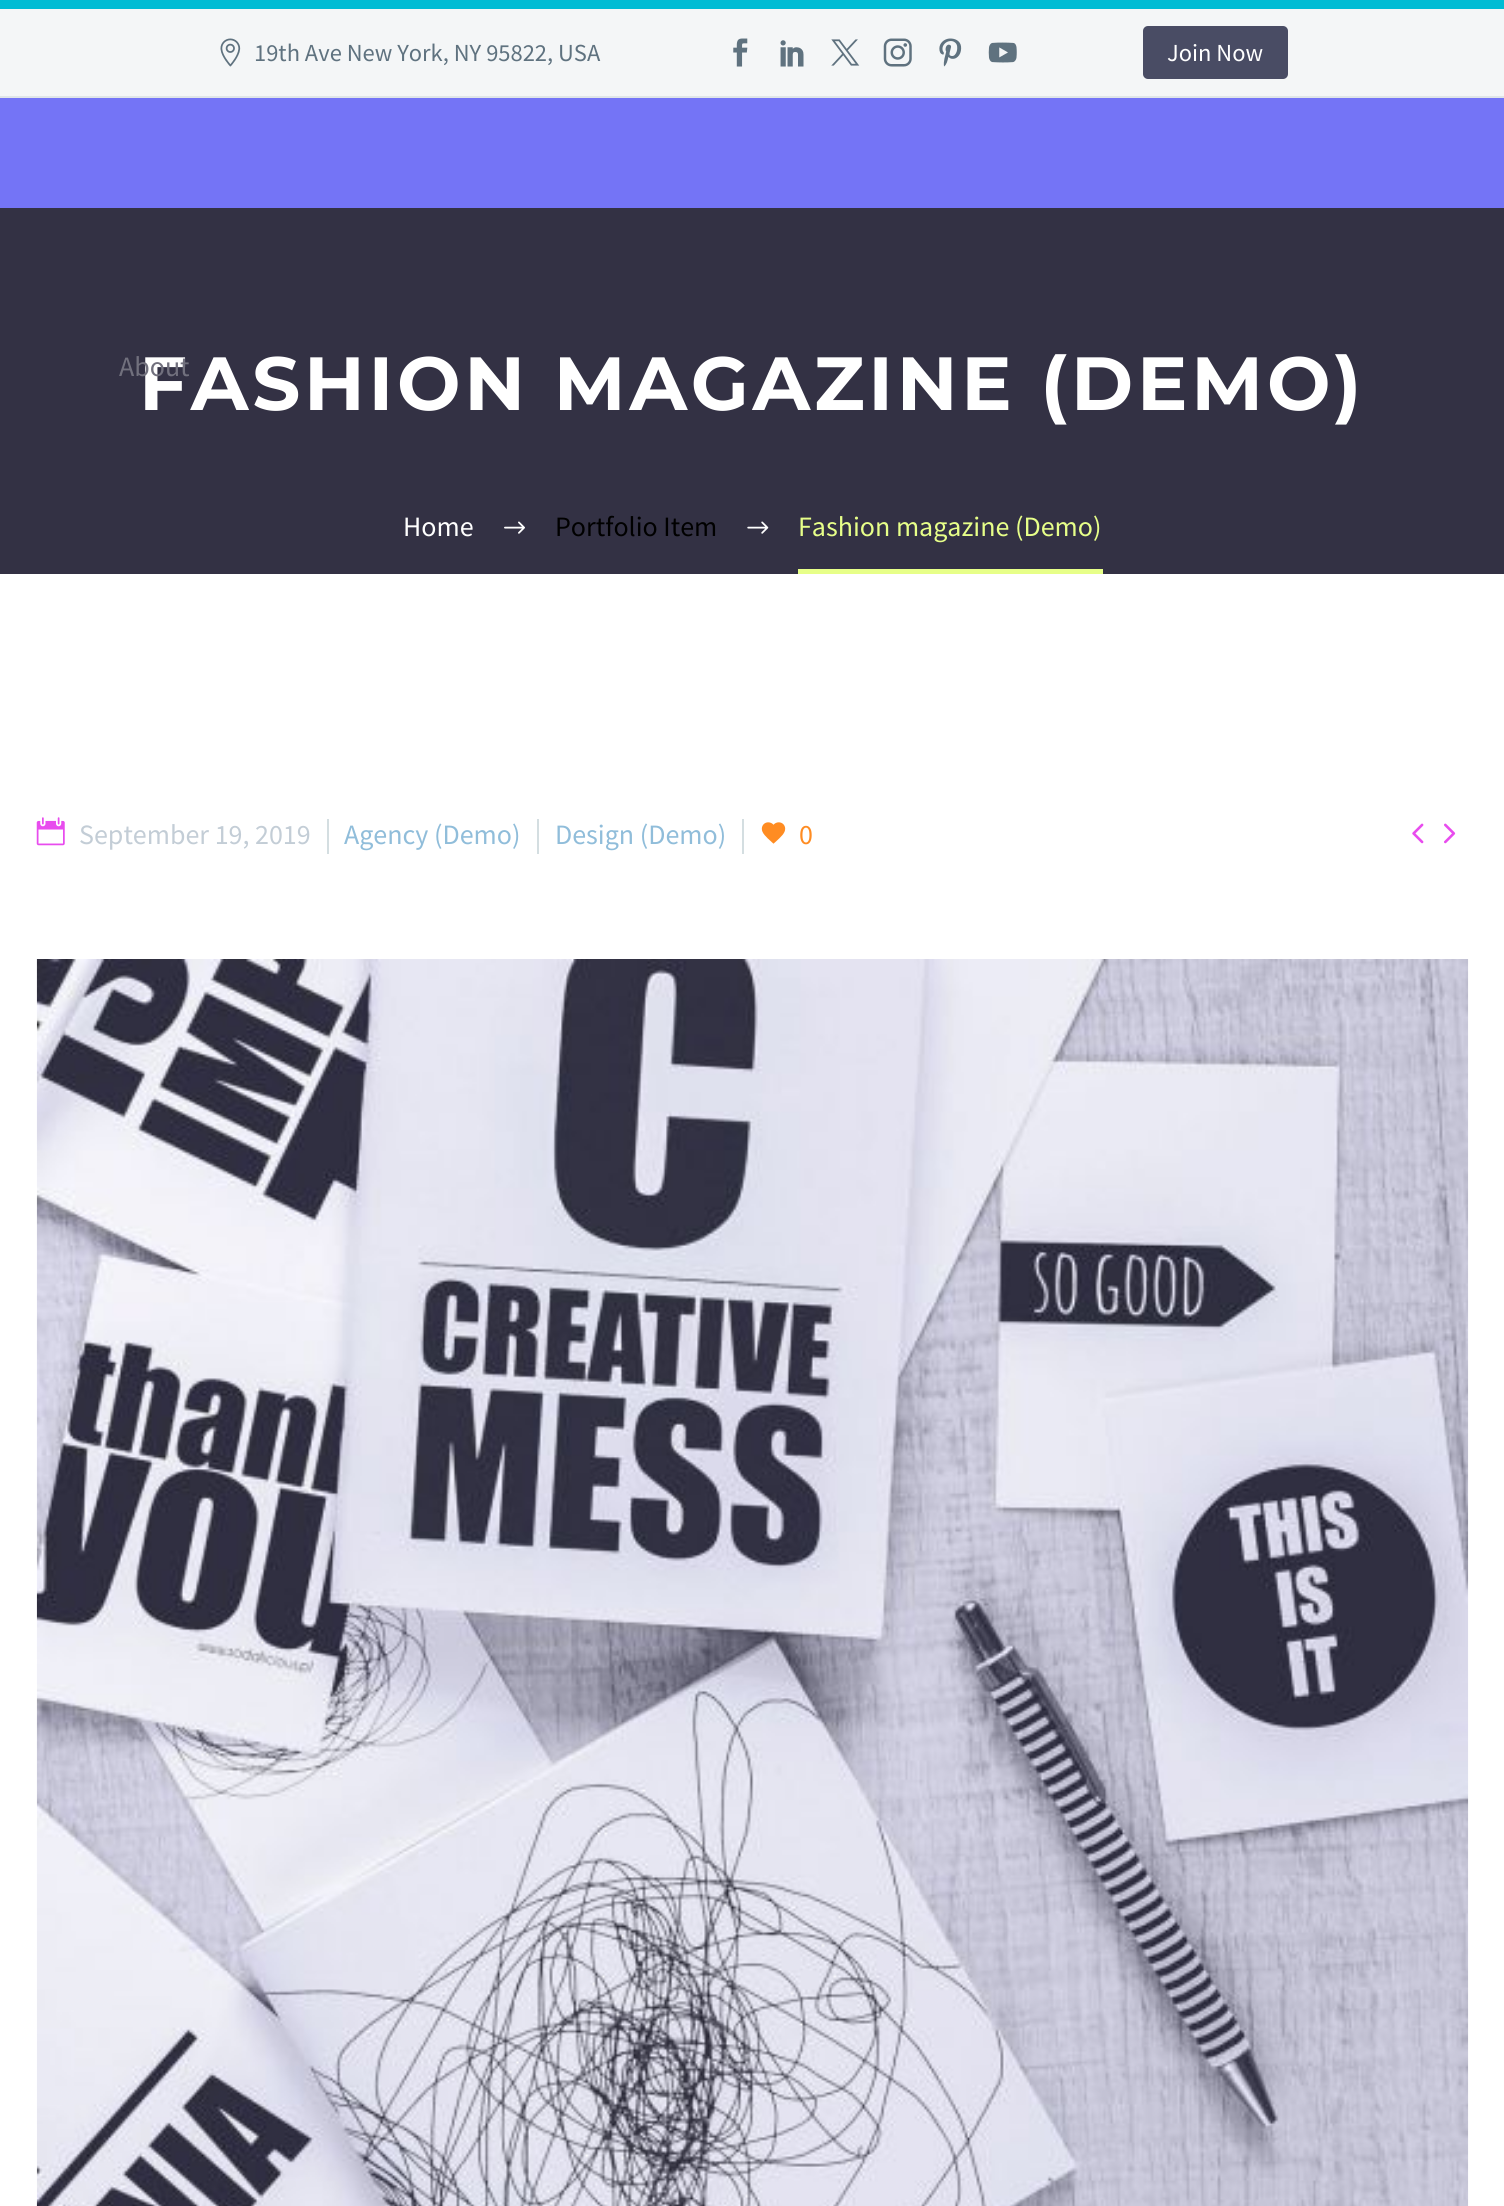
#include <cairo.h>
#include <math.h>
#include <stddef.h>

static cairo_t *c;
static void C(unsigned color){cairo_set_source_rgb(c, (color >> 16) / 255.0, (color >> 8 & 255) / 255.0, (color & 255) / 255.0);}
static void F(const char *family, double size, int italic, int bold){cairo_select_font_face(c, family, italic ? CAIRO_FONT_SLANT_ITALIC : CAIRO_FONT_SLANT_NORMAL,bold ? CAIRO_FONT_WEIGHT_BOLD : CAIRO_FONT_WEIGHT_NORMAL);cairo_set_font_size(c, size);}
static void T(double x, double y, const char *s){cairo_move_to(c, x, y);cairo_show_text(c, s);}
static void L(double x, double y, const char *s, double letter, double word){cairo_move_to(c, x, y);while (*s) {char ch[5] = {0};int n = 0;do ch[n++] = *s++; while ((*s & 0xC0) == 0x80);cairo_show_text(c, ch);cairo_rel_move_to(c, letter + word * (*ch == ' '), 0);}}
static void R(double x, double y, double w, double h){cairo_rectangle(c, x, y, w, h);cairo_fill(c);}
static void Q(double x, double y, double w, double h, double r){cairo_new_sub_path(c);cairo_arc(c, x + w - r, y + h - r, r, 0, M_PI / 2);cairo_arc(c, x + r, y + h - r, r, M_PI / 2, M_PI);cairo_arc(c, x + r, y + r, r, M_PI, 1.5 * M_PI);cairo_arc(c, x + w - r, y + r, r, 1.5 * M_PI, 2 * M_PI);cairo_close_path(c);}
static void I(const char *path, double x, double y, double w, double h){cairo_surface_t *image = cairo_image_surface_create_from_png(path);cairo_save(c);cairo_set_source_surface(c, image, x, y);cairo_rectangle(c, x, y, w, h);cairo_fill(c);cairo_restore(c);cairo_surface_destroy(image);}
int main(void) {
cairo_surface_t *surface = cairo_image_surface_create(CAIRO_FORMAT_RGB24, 1504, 2206);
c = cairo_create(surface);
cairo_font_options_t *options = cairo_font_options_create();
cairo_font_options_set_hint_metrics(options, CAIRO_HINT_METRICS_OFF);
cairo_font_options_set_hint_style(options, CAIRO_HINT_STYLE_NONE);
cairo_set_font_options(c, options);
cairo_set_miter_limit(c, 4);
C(0xffffff);
cairo_paint(c);
C(0xf4f6f7);
R(0,9,1504,87);
C(0x00bcd4);
R(0,0,1504,9);
C(0xdfe5e8);
R(0,96,1504,2);
I("1.png",220,38,21,29);
F("Source Sans Pro",24.5,0,0);
C(0x5f727f);
T(254,61,"19th Ave New York, NY 95822, USA");
I("2.png",733,38,15,29);
I("3.png",780,40,24,27);
I("4.png",831,39,29,27);
I("5.png",883,38,29,29);
I("6.png",939,38,23,29);
I("7.png",988,42,29,21);
C(0x494c64);
Q(1143,26,145,53,5);
cairo_fill(c);
C(0xffffff);
T(1167,61,"Join Now");
C(0x333144);
R(0,208,1504,366);
F("Montserrat",75.25,0,1);
C(0xffffff);
L(139,410,"FASHION MAGAZINE (DEMO)",3.75,0);
F("Source Sans Pro",28,0,0);
T(403,536,"Home");
I("8.png",504,521,21,13);
C(0x000000);
T(555,536,"Portfolio Item");
I("9.png",747,521,22,13);
C(0xe7ff89);
R(798,569,305,5);
T(798,536,"Fashion magazine (Demo)");
I("10.png",36,817,29,29);
C(0xc3cdd6);
T(79,844,"September 19, 2019");
C(0xd4dee1);
R(327,819,2,35);
C(0x90bdda);
T(344,844,"Agency (Demo)");
C(0xd4dee1);
R(537,819,2,35);
C(0x90bdda);
T(555,844,"Design (Demo)");
C(0xd4dee1);
R(742,819,2,35);
I("11.png",761,822,25,22);
C(0xff8c22);
T(799,844,"0");
I("12.png",1412,823,12,21);
I("13.png",1444,823,12,21);
I("14.png",36,959,1433,1247);
C(0x7474f6);
R(0,98,1504,110);
C(0x71707d);
T(119,376,"About");
cairo_surface_write_to_png(surface, "o.png");
cairo_font_options_destroy(options);
cairo_destroy(c);
cairo_surface_destroy(surface);
return 0;
}
